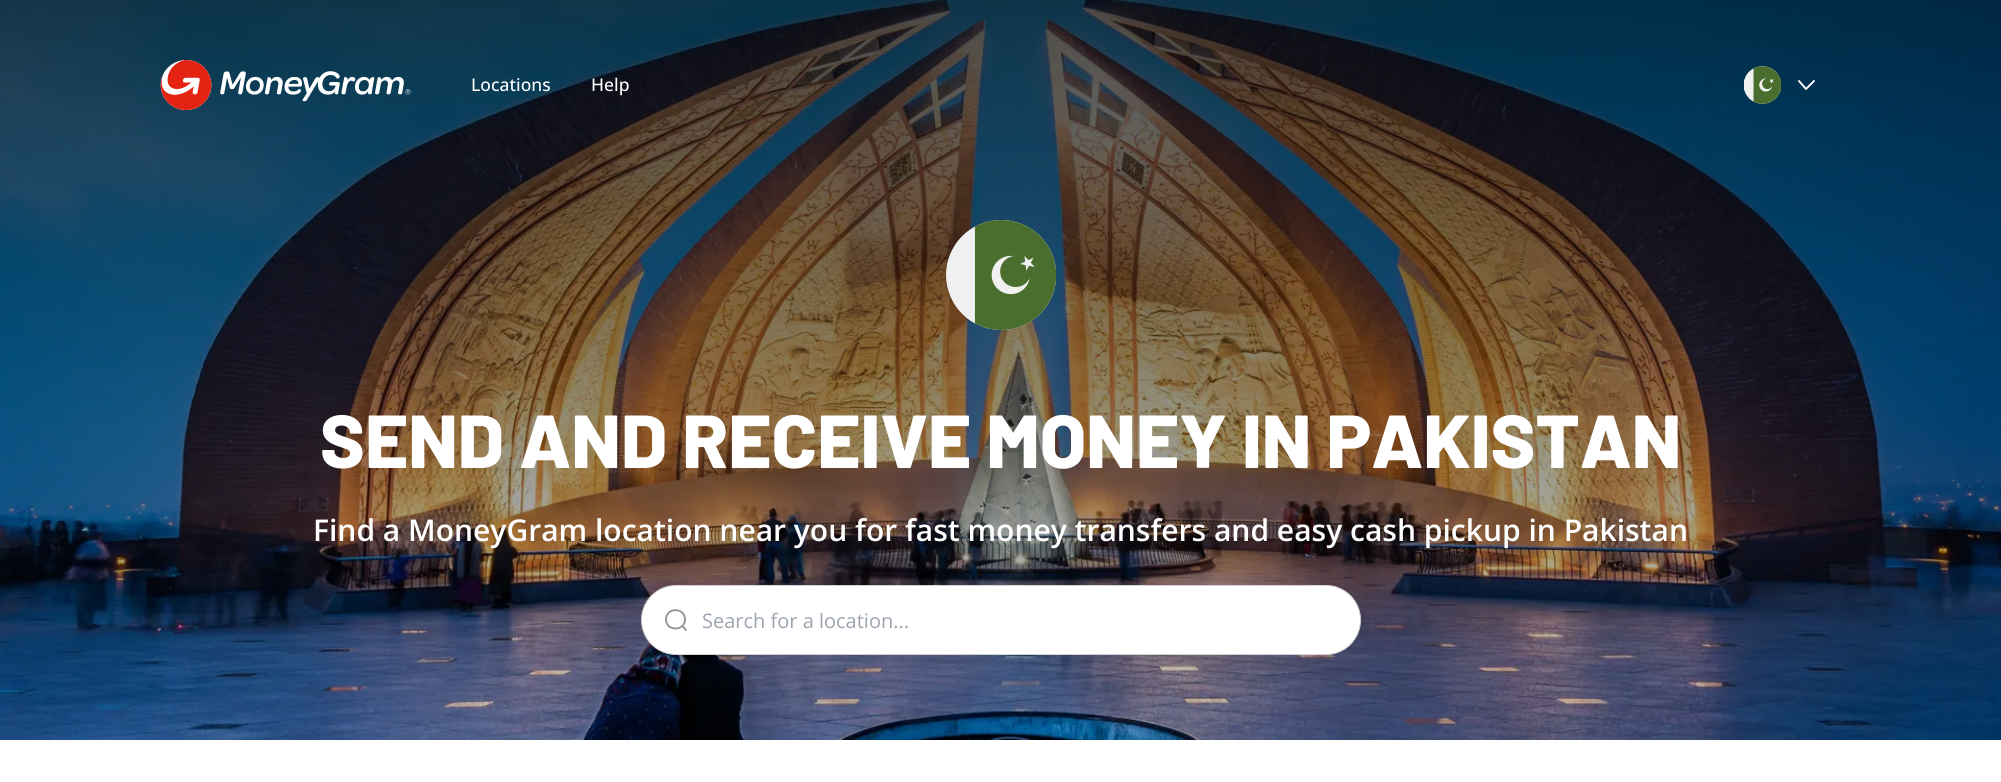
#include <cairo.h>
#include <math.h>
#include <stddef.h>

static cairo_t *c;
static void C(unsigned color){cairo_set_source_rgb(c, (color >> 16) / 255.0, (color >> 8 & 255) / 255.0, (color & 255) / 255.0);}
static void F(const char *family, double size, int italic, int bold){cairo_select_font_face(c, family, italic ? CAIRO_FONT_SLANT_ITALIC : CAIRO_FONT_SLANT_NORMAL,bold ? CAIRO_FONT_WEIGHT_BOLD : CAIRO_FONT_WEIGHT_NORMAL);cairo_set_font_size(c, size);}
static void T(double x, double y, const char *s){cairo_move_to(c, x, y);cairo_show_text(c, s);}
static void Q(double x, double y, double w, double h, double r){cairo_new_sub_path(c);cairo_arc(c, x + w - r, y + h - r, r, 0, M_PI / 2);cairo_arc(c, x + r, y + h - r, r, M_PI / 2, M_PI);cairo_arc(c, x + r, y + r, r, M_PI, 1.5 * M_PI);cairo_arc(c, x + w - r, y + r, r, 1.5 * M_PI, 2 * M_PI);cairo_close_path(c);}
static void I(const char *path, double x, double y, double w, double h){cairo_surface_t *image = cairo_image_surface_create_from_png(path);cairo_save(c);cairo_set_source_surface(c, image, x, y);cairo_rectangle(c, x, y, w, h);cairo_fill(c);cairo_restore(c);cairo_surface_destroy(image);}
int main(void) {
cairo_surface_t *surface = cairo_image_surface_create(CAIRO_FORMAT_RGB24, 2001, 782);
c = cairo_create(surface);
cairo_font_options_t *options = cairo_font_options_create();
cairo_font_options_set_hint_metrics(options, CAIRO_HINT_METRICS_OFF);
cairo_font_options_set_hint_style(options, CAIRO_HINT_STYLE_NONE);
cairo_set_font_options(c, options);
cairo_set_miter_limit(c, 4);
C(0xffffff);
cairo_paint(c);
I("1.png",0,0,2001,740);
I("2.png",160,60,251,50);
F("Open Sans Medium",17.5,0,0);
C(0xffffff);
T(471,91,"Locations");
T(591,91,"Help");
I("3.png",1744,66,37,38);
cairo_new_path(c);
cairo_move_to(c,1799,81);
cairo_line_to(c,1806,89);
cairo_line_to(c,1814,81);
cairo_set_line_width(c,1.9);
cairo_set_line_cap(c,CAIRO_LINE_CAP_ROUND);
cairo_set_line_join(c,CAIRO_LINE_JOIN_ROUND);
cairo_stroke(c);
I("4.png",946,220,110,110);
F("Barlow ExtraBold",75,0,0);
T(320,468,"SEND AND RECEIVE MONEY IN PAKISTAN");
F("Open Sans SemiBold",30,0,0);
T(313,541,"Find a MoneyGram location near you for fast money transfers and easy cash pickup in Pakistan");
Q(641.5,585.5,719,69,34.5);
cairo_fill_preserve(c);
C(0xd1d1d1);
cairo_set_line_width(c,1);
cairo_set_line_cap(c,CAIRO_LINE_CAP_BUTT);
cairo_set_line_join(c,CAIRO_LINE_JOIN_MITER);
cairo_stroke(c);
cairo_new_path(c);
cairo_move_to(c,685,619.5);
cairo_curve_to(c,685,631.5,666,631.5,666,619.5);
cairo_curve_to(c,666,607,685,607,685,619.5);
cairo_move_to(c,682.5,626);
cairo_line_to(c,686,630);
C(0x959595);
cairo_set_line_width(c,1.9);
cairo_set_line_cap(c,CAIRO_LINE_CAP_ROUND);
cairo_set_line_join(c,CAIRO_LINE_JOIN_ROUND);
cairo_stroke(c);
F("Open Sans",20,0,0);
C(0x9ca3af);
T(702,628,"Search for a location...");
cairo_surface_write_to_png(surface, "o.png");
cairo_font_options_destroy(options);
cairo_destroy(c);
cairo_surface_destroy(surface);
return 0;
}
